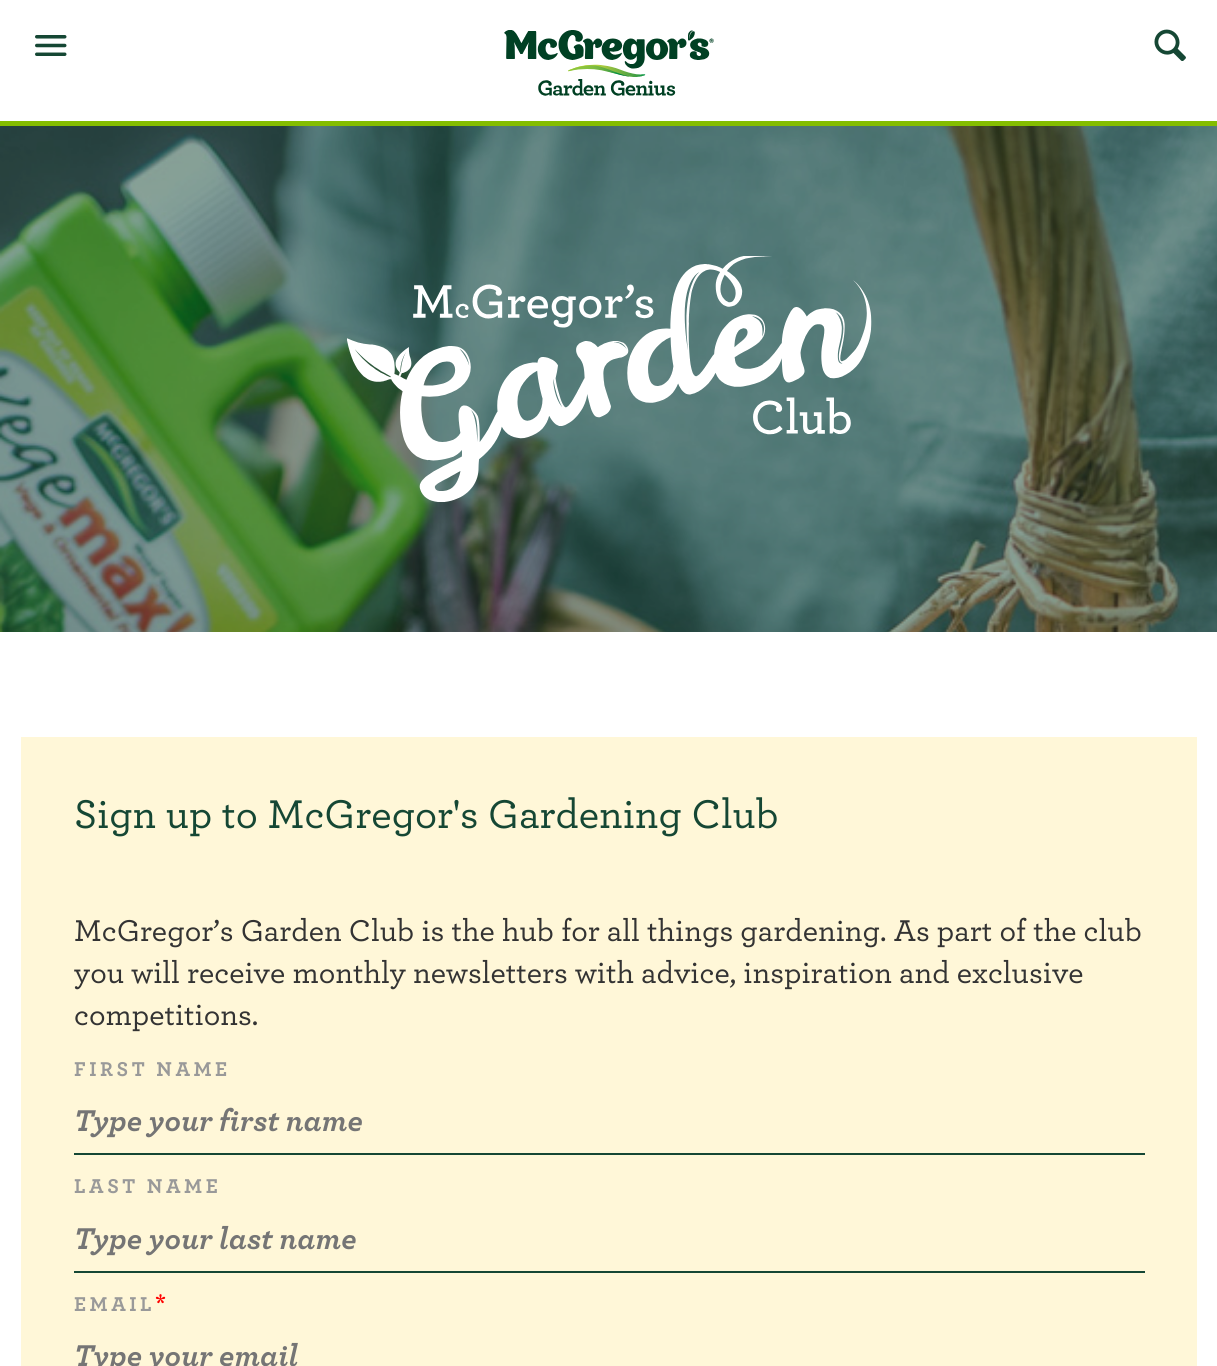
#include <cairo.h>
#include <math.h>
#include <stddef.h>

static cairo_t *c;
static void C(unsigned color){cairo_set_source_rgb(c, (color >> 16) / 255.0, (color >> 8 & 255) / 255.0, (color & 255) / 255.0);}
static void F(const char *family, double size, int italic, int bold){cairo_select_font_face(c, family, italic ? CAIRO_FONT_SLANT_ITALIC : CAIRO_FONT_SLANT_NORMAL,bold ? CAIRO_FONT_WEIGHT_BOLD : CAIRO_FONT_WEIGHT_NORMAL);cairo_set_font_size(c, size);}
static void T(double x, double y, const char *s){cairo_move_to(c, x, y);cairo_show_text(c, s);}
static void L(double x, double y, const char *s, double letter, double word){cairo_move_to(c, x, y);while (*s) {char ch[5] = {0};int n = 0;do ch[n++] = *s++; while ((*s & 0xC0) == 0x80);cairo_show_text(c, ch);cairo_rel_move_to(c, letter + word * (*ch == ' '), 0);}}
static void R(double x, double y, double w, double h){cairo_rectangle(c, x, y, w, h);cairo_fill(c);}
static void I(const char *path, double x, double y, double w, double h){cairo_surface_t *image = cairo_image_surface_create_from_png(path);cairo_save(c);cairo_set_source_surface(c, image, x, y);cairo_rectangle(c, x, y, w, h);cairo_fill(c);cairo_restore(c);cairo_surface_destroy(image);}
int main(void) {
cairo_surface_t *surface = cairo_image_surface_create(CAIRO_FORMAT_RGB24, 1217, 1366);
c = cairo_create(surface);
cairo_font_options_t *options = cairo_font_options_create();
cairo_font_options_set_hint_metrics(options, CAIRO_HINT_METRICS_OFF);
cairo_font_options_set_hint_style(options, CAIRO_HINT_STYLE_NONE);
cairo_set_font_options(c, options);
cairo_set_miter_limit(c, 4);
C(0xffffff);
cairo_paint(c);
C(0x84bd00);
R(0,121,1217,5);
I("1.png",35,35,32,21);
I("2.png",504,30,210,66);
I("3.png",1154,29,32,32);
I("4.png",0,126,1217,506);
I("5.png",347,256,525,246);
C(0xfff7d8);
R(21,737,1176,629);
F("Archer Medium",42,0,0);
C(0x154734);
T(74,828,"Sign up to McGregor's Gardening Club");
F("Archer Medium",31.5,0,0);
C(0x333333);
T(74,941,"McGregor’s Garden Club is the hub for all things gardening. As part of the club");
T(74,983,"you will receive monthly newsletters with advice, inspiration and exclusive");
T(74,1025,"competitions.");
F("Archer",21,0,1);
C(0x999999);
L(74,1076,"FIRST NAME",3.5,0);
C(0x154734);
R(74,1153,1071,2);
F("Archer",31.5,1,1);
C(0x757575);
T(74,1131,"Type your first name");
F("Archer",21,0,1);
C(0x999999);
L(74,1193,"LAST NAME",3.5,0);
C(0x154734);
R(74,1271,1071,2);
F("Archer",31.5,1,1);
C(0x757575);
T(74,1249,"Type your last name");
F("Archer",21,0,1);
C(0x999999);
L(74,1311,"EMAIL",3.5,0);
F("Archer",24,0,1);
C(0xff0000);
L(155,1311,"*",3.5,0);
F("Archer",31.5,1,1);
C(0x757575);
T(74,1366,"Type your email");
cairo_surface_write_to_png(surface, "o.png");
cairo_font_options_destroy(options);
cairo_destroy(c);
cairo_surface_destroy(surface);
return 0;
}
